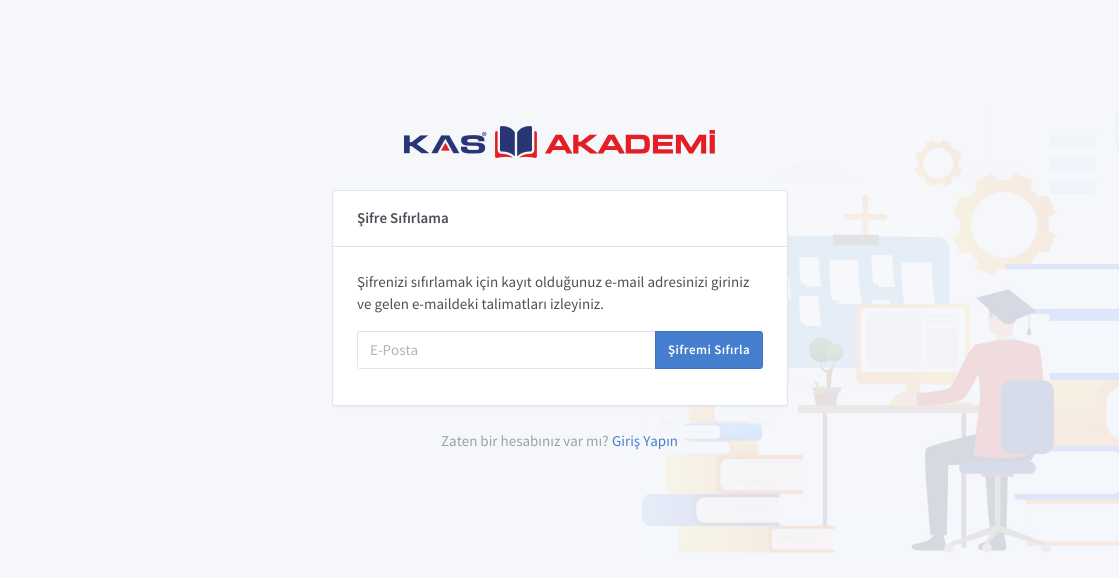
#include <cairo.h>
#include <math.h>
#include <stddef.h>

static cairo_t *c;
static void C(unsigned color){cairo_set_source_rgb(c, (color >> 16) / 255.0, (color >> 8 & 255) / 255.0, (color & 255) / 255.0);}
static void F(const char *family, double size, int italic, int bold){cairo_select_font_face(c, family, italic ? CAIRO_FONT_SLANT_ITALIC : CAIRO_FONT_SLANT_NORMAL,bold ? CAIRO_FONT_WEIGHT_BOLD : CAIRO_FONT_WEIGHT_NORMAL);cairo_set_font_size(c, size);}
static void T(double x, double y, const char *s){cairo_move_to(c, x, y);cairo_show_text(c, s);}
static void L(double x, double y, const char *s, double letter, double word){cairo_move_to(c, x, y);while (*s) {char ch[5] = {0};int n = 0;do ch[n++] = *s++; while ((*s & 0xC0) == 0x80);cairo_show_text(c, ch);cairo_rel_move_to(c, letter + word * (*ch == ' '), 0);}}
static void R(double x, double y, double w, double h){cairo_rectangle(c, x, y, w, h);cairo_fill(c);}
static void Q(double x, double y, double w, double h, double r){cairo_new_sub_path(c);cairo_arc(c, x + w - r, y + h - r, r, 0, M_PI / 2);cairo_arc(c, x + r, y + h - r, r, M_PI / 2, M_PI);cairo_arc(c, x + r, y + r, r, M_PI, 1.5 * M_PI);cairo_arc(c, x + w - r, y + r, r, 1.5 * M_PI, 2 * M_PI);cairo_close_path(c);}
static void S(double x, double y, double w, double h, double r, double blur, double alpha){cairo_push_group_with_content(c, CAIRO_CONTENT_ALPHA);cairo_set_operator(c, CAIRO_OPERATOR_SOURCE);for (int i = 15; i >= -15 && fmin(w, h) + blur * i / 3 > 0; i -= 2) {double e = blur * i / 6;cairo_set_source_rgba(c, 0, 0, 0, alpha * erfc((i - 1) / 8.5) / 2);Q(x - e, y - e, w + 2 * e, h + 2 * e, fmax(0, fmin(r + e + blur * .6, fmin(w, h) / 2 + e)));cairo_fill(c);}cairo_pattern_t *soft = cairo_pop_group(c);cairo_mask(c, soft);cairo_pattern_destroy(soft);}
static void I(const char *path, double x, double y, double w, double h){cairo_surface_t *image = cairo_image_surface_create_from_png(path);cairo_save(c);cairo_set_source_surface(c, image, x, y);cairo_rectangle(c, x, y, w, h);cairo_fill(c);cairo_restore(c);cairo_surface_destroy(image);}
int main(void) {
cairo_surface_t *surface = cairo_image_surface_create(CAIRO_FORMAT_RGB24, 1119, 578);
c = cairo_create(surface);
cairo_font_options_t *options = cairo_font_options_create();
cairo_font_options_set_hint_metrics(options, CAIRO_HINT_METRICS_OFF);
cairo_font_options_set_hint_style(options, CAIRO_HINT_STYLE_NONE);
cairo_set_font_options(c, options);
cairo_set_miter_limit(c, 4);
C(0xf6f7fb);
cairo_paint(c);
I("1.png",641,108,478,445);
I("2.png",404,126,311,32);
C(0x000000);
S(332,191,456,216,3,1,.05);
C(0xffffff);
Q(332,190,456,216,3);
cairo_fill(c);
Q(332.5,190.5,455,215,2.5);
cairo_set_source_rgba(c,0,0.157,0.392,0.12);
cairo_set_line_width(c,1);
cairo_stroke(c);
C(0xe0e5ec);
R(333,246,454,1);
F("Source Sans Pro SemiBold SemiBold",15,0,0);
C(0x495057);
T(357,223,"Şifre Sıfırlama");
F("Source Sans Pro",15,0,0);
T(357,287,"Şifrenizi sıfırlamak için kayıt olduğunuz e-mail adresinizi giriniz");
T(357,309,"ve gelen e-maildeki talimatları izleyiniz.");
cairo_new_path(c);
cairo_move_to(c,360,331.5);
cairo_line_to(c,655.5,331.5);
cairo_line_to(c,655.5,368.5);
cairo_line_to(c,360,368.5);
cairo_curve_to(c,358.5,368.5,357.5,367.5,357.5,366);
cairo_line_to(c,357.5,334);
cairo_curve_to(c,357.5,332.5,358.5,331.5,360,331.5);
cairo_close_path(c);
C(0xe0e5ec);
cairo_stroke(c);
C(0xadb5bd);
T(370,355,"E-Posta");
C(0x467fcf);
cairo_new_path(c);
cairo_move_to(c,655,331);
cairo_line_to(c,760,331);
cairo_curve_to(c,761.5,331,763,332.5,763,334);
cairo_line_to(c,763,366);
cairo_curve_to(c,763,367.5,761.5,369,760,369);
cairo_line_to(c,655,369);
cairo_close_path(c);
cairo_fill(c);
cairo_new_path(c);
cairo_move_to(c,655.5,331.5);
cairo_line_to(c,760,331.5);
cairo_curve_to(c,761.5,331.5,762.5,332.5,762.5,334);
cairo_line_to(c,762.5,366);
cairo_curve_to(c,762.5,367.5,761.5,368.5,760,368.5);
cairo_line_to(c,655.5,368.5);
cairo_close_path(c);
cairo_set_source_rgba(c,0,0.157,0.392,0.12);
cairo_stroke(c);
F("Source Sans Pro SemiBold SemiBold",13,0,0);
C(0xffffff);
L(668,354,"Şifremi Sıfırla",.4,0);
F("Source Sans Pro",15,0,0);
C(0x9aa0ac);
T(441,446,"Zaten bir hesabınız var mı?");
C(0x467fcf);
T(612,446,"Giriş Yapın");
cairo_surface_write_to_png(surface, "o.png");
cairo_font_options_destroy(options);
cairo_destroy(c);
cairo_surface_destroy(surface);
return 0;
}
